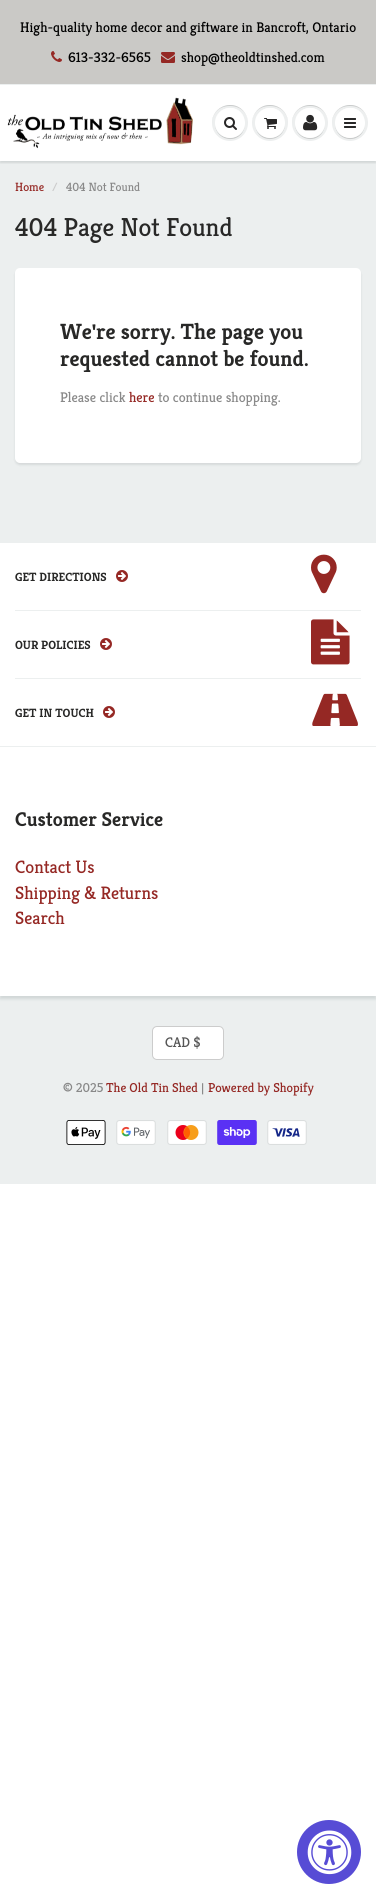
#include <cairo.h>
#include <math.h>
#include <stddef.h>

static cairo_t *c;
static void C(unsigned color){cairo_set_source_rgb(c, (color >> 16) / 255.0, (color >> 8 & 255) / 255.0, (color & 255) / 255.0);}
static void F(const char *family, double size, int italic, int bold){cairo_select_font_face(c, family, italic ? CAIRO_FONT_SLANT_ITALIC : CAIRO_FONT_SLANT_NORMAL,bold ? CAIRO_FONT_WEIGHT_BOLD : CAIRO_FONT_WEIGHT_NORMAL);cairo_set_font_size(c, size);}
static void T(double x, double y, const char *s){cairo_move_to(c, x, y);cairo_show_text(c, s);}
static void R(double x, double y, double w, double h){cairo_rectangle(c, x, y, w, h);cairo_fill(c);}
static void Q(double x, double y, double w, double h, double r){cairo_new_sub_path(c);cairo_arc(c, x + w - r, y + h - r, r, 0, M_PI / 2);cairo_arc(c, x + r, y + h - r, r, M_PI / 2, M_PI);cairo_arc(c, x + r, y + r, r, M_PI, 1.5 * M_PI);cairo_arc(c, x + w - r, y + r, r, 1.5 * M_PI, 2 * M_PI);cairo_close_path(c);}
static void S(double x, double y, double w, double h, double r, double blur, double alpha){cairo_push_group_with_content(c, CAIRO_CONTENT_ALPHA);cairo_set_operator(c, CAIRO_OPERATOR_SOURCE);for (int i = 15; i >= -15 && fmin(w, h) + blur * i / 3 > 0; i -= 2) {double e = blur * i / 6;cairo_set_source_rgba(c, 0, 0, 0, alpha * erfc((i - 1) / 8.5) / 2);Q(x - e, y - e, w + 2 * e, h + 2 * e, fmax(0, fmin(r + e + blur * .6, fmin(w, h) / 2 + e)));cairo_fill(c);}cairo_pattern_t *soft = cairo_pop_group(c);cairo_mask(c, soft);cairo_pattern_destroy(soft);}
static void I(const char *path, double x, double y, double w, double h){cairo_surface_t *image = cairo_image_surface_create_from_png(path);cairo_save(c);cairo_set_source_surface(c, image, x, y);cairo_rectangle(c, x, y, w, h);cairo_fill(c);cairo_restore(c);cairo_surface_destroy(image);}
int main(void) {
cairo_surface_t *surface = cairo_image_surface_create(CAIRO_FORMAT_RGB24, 376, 1899);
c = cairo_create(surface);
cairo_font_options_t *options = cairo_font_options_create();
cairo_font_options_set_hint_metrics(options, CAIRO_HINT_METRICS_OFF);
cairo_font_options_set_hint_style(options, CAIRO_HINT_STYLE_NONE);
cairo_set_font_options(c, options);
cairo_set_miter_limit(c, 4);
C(0xffffff);
cairo_paint(c);
C(0xcac9c6);
R(0,0,376,84);
F("Kreon",14,0,0);
C(0x000000);
T(20,32,"High-quality home decor and giftware in Bancroft, Ontario");
I("1.png",51,51,11,11);
T(68,62,"613-332-6565");
I("2.png",161,52,14,11);
T(181,62,"shop@theoldtinshed.com");
C(0xecefef);
R(0,161,376,382);
cairo_save(c);
cairo_rectangle(c,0,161,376,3);
cairo_clip(c);
C(0x0b191c);
S(0,86,376,77,0,1,.12);
cairo_restore(c);
R(0,84,376,1);
I("3.png",7,97,186,52);
C(0xedefef);
cairo_arc(c,230,123,18,0,2 * M_PI);
cairo_fill(c);
C(0xc9cbcb);
cairo_new_path(c);
cairo_move_to(c,230,106);
cairo_curve_to(c,242,106,248,114.5,248,123.5);
cairo_curve_to(c,248,120,247,116,245,113);
cairo_curve_to(c,235,98,211.5,105.5,212,123.5);
cairo_curve_to(c,212,114.5,218,106,230,106);
cairo_close_path(c);
cairo_fill(c);
cairo_new_path(c);
cairo_move_to(c,215,123.5);
cairo_curve_to(c,214.5,138.5,234,145,242.5,132.5);
cairo_curve_to(c,244,130,245,126.5,245,123.5);
cairo_curve_to(c,244.5,142.5,215.5,142.5,215,123.5);
cairo_close_path(c);
cairo_fill(c);
C(0xffffff);
cairo_arc(c,230,123,15,0,2 * M_PI);
cairo_fill(c);
cairo_new_path(c);
cairo_move_to(c,230,109);
cairo_curve_to(c,240,109,245,116,245,123.5);
cairo_curve_to(c,245,120.5,244,117,242.5,114.5);
cairo_curve_to(c,234,102,214.5,108.5,215,123.5);
cairo_curve_to(c,215,116,220,109,230,109);
cairo_close_path(c);
cairo_fill(c);
I("4.png",224,117,13,13);
C(0xedefef);
cairo_arc(c,270,123,18,0,2 * M_PI);
cairo_fill(c);
C(0xc9cbcb);
cairo_new_path(c);
cairo_move_to(c,270,106);
cairo_curve_to(c,282,106,288,114.5,288,123.5);
cairo_curve_to(c,288.5,105.5,265,98,255,113);
cairo_curve_to(c,253,116,252,120,252,123.5);
cairo_curve_to(c,252,114.5,258,106,270,106);
cairo_close_path(c);
cairo_fill(c);
cairo_new_path(c);
cairo_move_to(c,255,123.5);
cairo_curve_to(c,255,126.5,256,130,257.5,132.5);
cairo_curve_to(c,266,145,285.5,138.5,285,123.5);
cairo_curve_to(c,284.5,142.5,255.5,142.5,255,123.5);
cairo_close_path(c);
cairo_fill(c);
C(0xffffff);
cairo_arc(c,270,123,15,0,2 * M_PI);
cairo_fill(c);
cairo_new_path(c);
cairo_move_to(c,270,109);
cairo_curve_to(c,280,109,285,116,285,123.5);
cairo_curve_to(c,285,120.5,284,117,282.5,114.5);
cairo_curve_to(c,274,102,254.5,108.5,255,123.5);
cairo_curve_to(c,255,116,260,109,270,109);
cairo_close_path(c);
cairo_fill(c);
I("5.png",264,118,13,11);
C(0xedefef);
cairo_arc(c,310,123,18,0,2 * M_PI);
cairo_fill(c);
C(0xc9cbcb);
cairo_new_path(c);
cairo_move_to(c,310,106);
cairo_curve_to(c,322,106,328,114.5,328,123.5);
cairo_curve_to(c,328,120,327,116,325,113);
cairo_curve_to(c,315,98,291.5,105.5,292,123.5);
cairo_curve_to(c,292,114.5,298,106,310,106);
cairo_close_path(c);
cairo_fill(c);
cairo_new_path(c);
cairo_move_to(c,295,123.5);
cairo_curve_to(c,294.5,138.5,314,145,322.5,132.5);
cairo_curve_to(c,324,130,325,126.5,325,123.5);
cairo_curve_to(c,324.5,142.5,295.5,142.5,295,123.5);
cairo_close_path(c);
cairo_fill(c);
C(0xffffff);
cairo_arc(c,310,123,15,0,2 * M_PI);
cairo_fill(c);
cairo_new_path(c);
cairo_move_to(c,310,109);
cairo_curve_to(c,320,109,325,116,325,123.5);
cairo_curve_to(c,325,120.5,324,117,322.5,114.5);
cairo_curve_to(c,314,102,294.5,108.5,295,123.5);
cairo_curve_to(c,295,116,300,109,310,109);
cairo_close_path(c);
cairo_fill(c);
I("6.png",303,114,15,17);
C(0xedefef);
cairo_arc(c,350,123,18,0,2 * M_PI);
cairo_fill(c);
C(0xc9cbcb);
cairo_new_path(c);
cairo_move_to(c,350,106);
cairo_curve_to(c,362,106,368,114.5,368,123.5);
cairo_curve_to(c,368,120,367,116,365,113);
cairo_curve_to(c,355,98,331.5,105.5,332,123.5);
cairo_curve_to(c,332,114.5,338,106,350,106);
cairo_close_path(c);
cairo_fill(c);
cairo_new_path(c);
cairo_move_to(c,335,123.5);
cairo_curve_to(c,334.5,138.5,354,145,362.5,132.5);
cairo_curve_to(c,364,130,365,126.5,365,123.5);
cairo_curve_to(c,364.5,142.5,335.5,142.5,335,123.5);
cairo_close_path(c);
cairo_fill(c);
C(0xffffff);
cairo_arc(c,350,123,15,0,2 * M_PI);
cairo_fill(c);
cairo_new_path(c);
cairo_move_to(c,350,109);
cairo_curve_to(c,360,109,365,116,365,123.5);
cairo_curve_to(c,365,120.5,364,117,362.5,114.5);
cairo_curve_to(c,354,102,334.5,108.5,335,123.5);
cairo_curve_to(c,335,116,340,109,350,109);
cairo_close_path(c);
cairo_fill(c);
I("7.png",344,118,12,10);
F("Kreon",12,0,0);
C(0x952824);
T(15,191,"Home");
C(0xcccccc);
T(52,191,"/");
C(0x898989);
T(66,191,"404 Not Found");
F("Kreon",26,0,0);
C(0x282827);
T(15,236,"404 Page Not Found");
C(0x0b191c);
S(15,270,346,195,5,1,.1);
C(0xffffff);
Q(15,268,346,195,5);
cairo_fill(c);
F("Kreon",22,0,1);
C(0x282827);
T(60,339,"We're sorry. The page you");
T(60,366,"requested cannot be found.");
F("Kreon",14,0,0);
C(0x898989);
T(60,402,"Please click");
C(0x952824);
T(129,402,"here");
C(0x898989);
T(158,402,"to continue shopping.");
C(0xecefef);
R(15,610,346,1);
F("Kreon",12,0,1);
C(0x282827);
T(15,581,"GET DIRECTIONS");
I("8.png",116,570,12,12);
I("9.png",311,554,26,40);
C(0xecefef);
R(15,678,346,1);
C(0x282827);
T(15,649,"OUR POLICIES");
I("8.png",100,638,12,12);
I("10.png",311,619,39,46);
T(15,717,"GET IN TOUCH");
I("8.png",103,706,12,12);
I("11.png",312,693,46,33);
C(0xecefef);
R(0,996,376,188);
cairo_save(c);
cairo_rectangle(c,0,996,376,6);
cairo_clip(c);
C(0xd1d7d7);
S(0,749,376,250,0,1.5,1);
cairo_restore(c);
R(0,746,376,1);
F("Kreon",20,0,1);
C(0x282827);
T(15,826,"Customer Service");
F("Kreon",18,0,0);
C(0x952824);
T(15,873,"Contact Us");
T(15,899,"Shipping & Returns");
T(15,924,"Search");
C(0xffffff);
Q(152.5,1026.5,71,33,4.5);
cairo_fill_preserve(c);
C(0xcccccc);
cairo_set_line_width(c,1);
cairo_stroke(c);
F("Kreon",14,0,0);
C(0x555555);
T(165,1047,"CAD $");
F("Kreon",13,0,0);
C(0x898989);
T(63,1092,"© 2025");
C(0x952824);
T(106,1092,"The Old Tin Shed");
C(0x898989);
T(201,1092,"|");
C(0x952824);
T(208,1092,"Powered by Shopify");
I("12.png",66,1120,40,25);
I("13.png",116,1120,40,25);
I("14.png",167,1120,40,25);
I("15.png",217,1120,40,25);
I("16.png",267,1120,40,25);
C(0x574cd5);
cairo_arc(c,329,1852,32,0,2 * M_PI);
cairo_fill(c);
I("17.png",307,1830,45,45);
cairo_surface_write_to_png(surface, "o.png");
cairo_font_options_destroy(options);
cairo_destroy(c);
cairo_surface_destroy(surface);
return 0;
}
